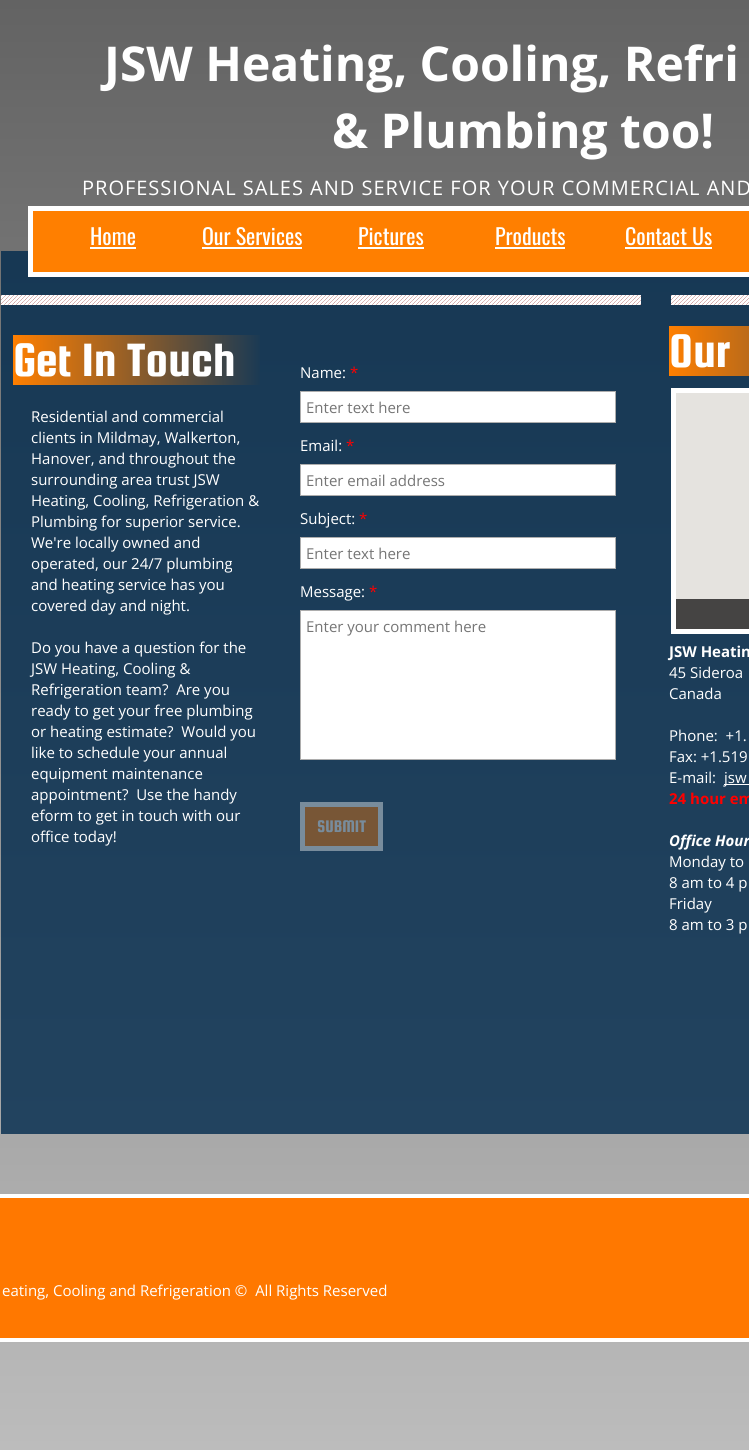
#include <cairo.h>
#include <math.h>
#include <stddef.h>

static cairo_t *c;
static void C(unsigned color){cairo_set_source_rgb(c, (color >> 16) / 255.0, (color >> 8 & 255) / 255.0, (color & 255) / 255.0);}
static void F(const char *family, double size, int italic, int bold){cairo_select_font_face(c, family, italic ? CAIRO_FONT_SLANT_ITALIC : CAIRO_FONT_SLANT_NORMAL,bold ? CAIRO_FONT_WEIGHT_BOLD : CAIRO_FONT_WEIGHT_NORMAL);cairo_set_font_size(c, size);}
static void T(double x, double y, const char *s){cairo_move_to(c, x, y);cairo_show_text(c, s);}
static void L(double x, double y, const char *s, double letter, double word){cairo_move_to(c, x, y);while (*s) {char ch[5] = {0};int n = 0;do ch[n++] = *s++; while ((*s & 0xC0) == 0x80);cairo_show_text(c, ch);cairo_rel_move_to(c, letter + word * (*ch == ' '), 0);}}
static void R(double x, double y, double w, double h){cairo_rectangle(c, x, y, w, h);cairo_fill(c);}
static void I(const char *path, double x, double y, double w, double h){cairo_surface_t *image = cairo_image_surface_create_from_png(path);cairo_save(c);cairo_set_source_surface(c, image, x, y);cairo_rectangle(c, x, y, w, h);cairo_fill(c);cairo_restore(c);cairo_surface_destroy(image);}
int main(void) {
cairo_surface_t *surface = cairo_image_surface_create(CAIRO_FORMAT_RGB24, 749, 1450);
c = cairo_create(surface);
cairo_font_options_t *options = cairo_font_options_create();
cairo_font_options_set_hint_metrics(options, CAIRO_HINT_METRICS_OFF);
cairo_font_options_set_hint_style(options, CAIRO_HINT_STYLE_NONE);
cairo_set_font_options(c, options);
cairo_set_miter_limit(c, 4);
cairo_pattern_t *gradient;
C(0xffffff);
cairo_paint(c);
gradient = cairo_pattern_create_linear(600,0,600,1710);
cairo_pattern_add_color_stop_rgba(gradient,0,0.388,0.388,0.388,1);
cairo_pattern_add_color_stop_rgba(gradient,1,0.8,0.8,0.8,1);
cairo_set_source(c,gradient);
cairo_pattern_destroy(gradient);
R(0,0,749,1450);
gradient = cairo_pattern_create_linear(600,0,600,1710);
cairo_pattern_add_color_stop_rgba(gradient,0,0.078,0.208,0.318,1);
cairo_pattern_add_color_stop_rgba(gradient,1,0.161,0.29,0.4,1);
cairo_set_source(c,gradient);
cairo_pattern_destroy(gradient);
R(1,251,748,883);
F("Open Sans",48,0,1);
C(0xffffff);
T(104,81,"JSW Heating, Cooling, Refri");
T(332,148,"& Plumbing too!");
F("Open Sans",20,0,0);
L(82,195,"PROFESSIONAL SALES AND SERVICE FOR YOUR COMMERCIAL AND",1,0);
C(0xff7f00);
cairo_rectangle(c,30.5,208.5,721,66);
cairo_fill_preserve(c);
C(0xffffff);
cairo_set_line_width(c,5);
cairo_stroke(c);
F("Oswald",22,0,0);
T(90,245,"Home");
R(90,247,46,2);
T(202,245,"Our Services");
R(202,247,100,2);
T(358,245,"Pictures");
R(358,247,66,2);
T(495,245,"Products");
R(495,247,70,2);
T(625,245,"Contact Us");
R(625,247,87,2);
I("1.png",1,295,320,10);
I("1.png",321,295,320,10);
I("2.png",671,295,78,10);
gradient = cairo_pattern_create_linear(13,360,263,360);
cairo_pattern_add_color_stop_rgba(gradient,0,1,0.498,0,1);
cairo_pattern_add_color_stop_rgba(gradient,1,0.094,0.224,0.333,1);
cairo_set_source(c,gradient);
cairo_pattern_destroy(gradient);
R(13,335,247,50);
F("Squada One",50,0,0);
C(0xffffff);
T(13,376,"Get In Touch");
gradient = cairo_pattern_create_linear(669,351,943,351);
cairo_pattern_add_color_stop_rgba(gradient,0,1,0.498,0,1);
cairo_pattern_add_color_stop_rgba(gradient,1,0.094,0.224,0.333,1);
cairo_set_source(c,gradient);
cairo_pattern_destroy(gradient);
R(669,326,80,50);
C(0xffffff);
T(669,367,"Our");
F("Open Sans",15,0,0);
T(31,422,"Residential and commercial");
T(31,443,"clients in Mildmay, Walkerton,");
T(31,464,"Hanover, and throughout the");
T(31,485,"surrounding area trust JSW");
T(31,506,"Heating, Cooling, Refrigeration &");
T(31,527,"Plumbing for superior service.");
T(31,548,"We're locally owned and");
T(31,569,"operated, our 24/7 plumbing");
T(31,590,"and heating service has you");
T(31,611,"covered day and night.");
T(31,653,"Do you have a question for the");
T(31,674,"JSW Heating, Cooling &");
T(31,695,"Refrigeration team?  Are you");
T(31,716,"ready to get your free plumbing");
T(31,737,"or heating estimate?  Would you");
T(31,758,"like to schedule your annual");
T(31,779,"equipment maintenance");
T(31,800,"appointment?  Use the handy");
T(31,821,"eform to get in touch with our");
T(31,842,"office today!");
T(300,378,"Name:");
C(0xff0000);
T(350,378,"*");
C(0xffffff);
cairo_rectangle(c,300.5,391.5,315,31);
cairo_fill_preserve(c);
C(0xadadad);
cairo_set_line_width(c,1);
cairo_stroke(c);
C(0x757575);
T(306,413,"Enter text here");
cairo_rectangle(c,673.5,390.5,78,241);
C(0xffffff);
cairo_set_line_width(c,5);
cairo_stroke(c);
C(0xe5e3df);
R(676,393,73,206);
C(0x454443);
R(676,599,73,30);
C(0xffffff);
T(300,451,"Email:");
C(0xff0000);
T(346,451,"*");
C(0xffffff);
cairo_rectangle(c,300.5,464.5,315,31);
cairo_fill_preserve(c);
C(0xadadad);
cairo_set_line_width(c,1);
cairo_stroke(c);
C(0x757575);
T(306,486,"Enter email address");
C(0xffffff);
T(300,524,"Subject:");
C(0xff0000);
T(359,524,"*");
C(0xffffff);
cairo_rectangle(c,300.5,537.5,315,31);
cairo_fill_preserve(c);
C(0xadadad);
cairo_stroke(c);
C(0x757575);
T(306,559,"Enter text here");
C(0xffffff);
T(300,597,"Message:");
C(0xff0000);
T(369,597,"*");
C(0xffffff);
cairo_rectangle(c,300.5,610.5,315,149);
cairo_fill_preserve(c);
C(0xadadad);
cairo_stroke(c);
C(0x757575);
T(306,632,"Enter your comment here");
C(0x785636);
cairo_rectangle(c,302.5,804.5,78,44);
cairo_fill_preserve(c);
C(0x788c9c);
cairo_set_line_width(c,5);
cairo_stroke(c);
F("Squada One",18,0,0);
T(317,832,"SUBMIT");
F("Open Sans",15,0,1);
C(0xffffff);
T(669,657,"JSW Heatin");
F("Open Sans",15,0,0);
T(669,678,"45 Sideroa");
T(669,699,"Canada");
T(669,741,"Phone:  +1.");
T(669,762,"Fax: +1.519");
T(669,783,"E-mail:");
R(724,784,25,1);
T(724,783,"jsw");
F("Open Sans",15,0,1);
C(0xff0000);
T(669,804,"24 hour em");
F("Open Sans",15,1,1);
C(0xffffff);
T(669,846,"Office Hour");
F("Open Sans",15,0,0);
T(669,867,"Monday to");
T(669,888,"8 am to 4 p");
T(669,909,"Friday");
T(669,930,"8 am to 3 p");
C(0xff7800);
R(0,1198,749,140);
C(0xffffff);
R(0,1194,749,4);
R(0,1338,749,4);
T(2,1296,"eating, Cooling and Refrigeration ©  All Rights Reserved");
cairo_surface_write_to_png(surface, "o.png");
cairo_font_options_destroy(options);
cairo_destroy(c);
cairo_surface_destroy(surface);
return 0;
}
